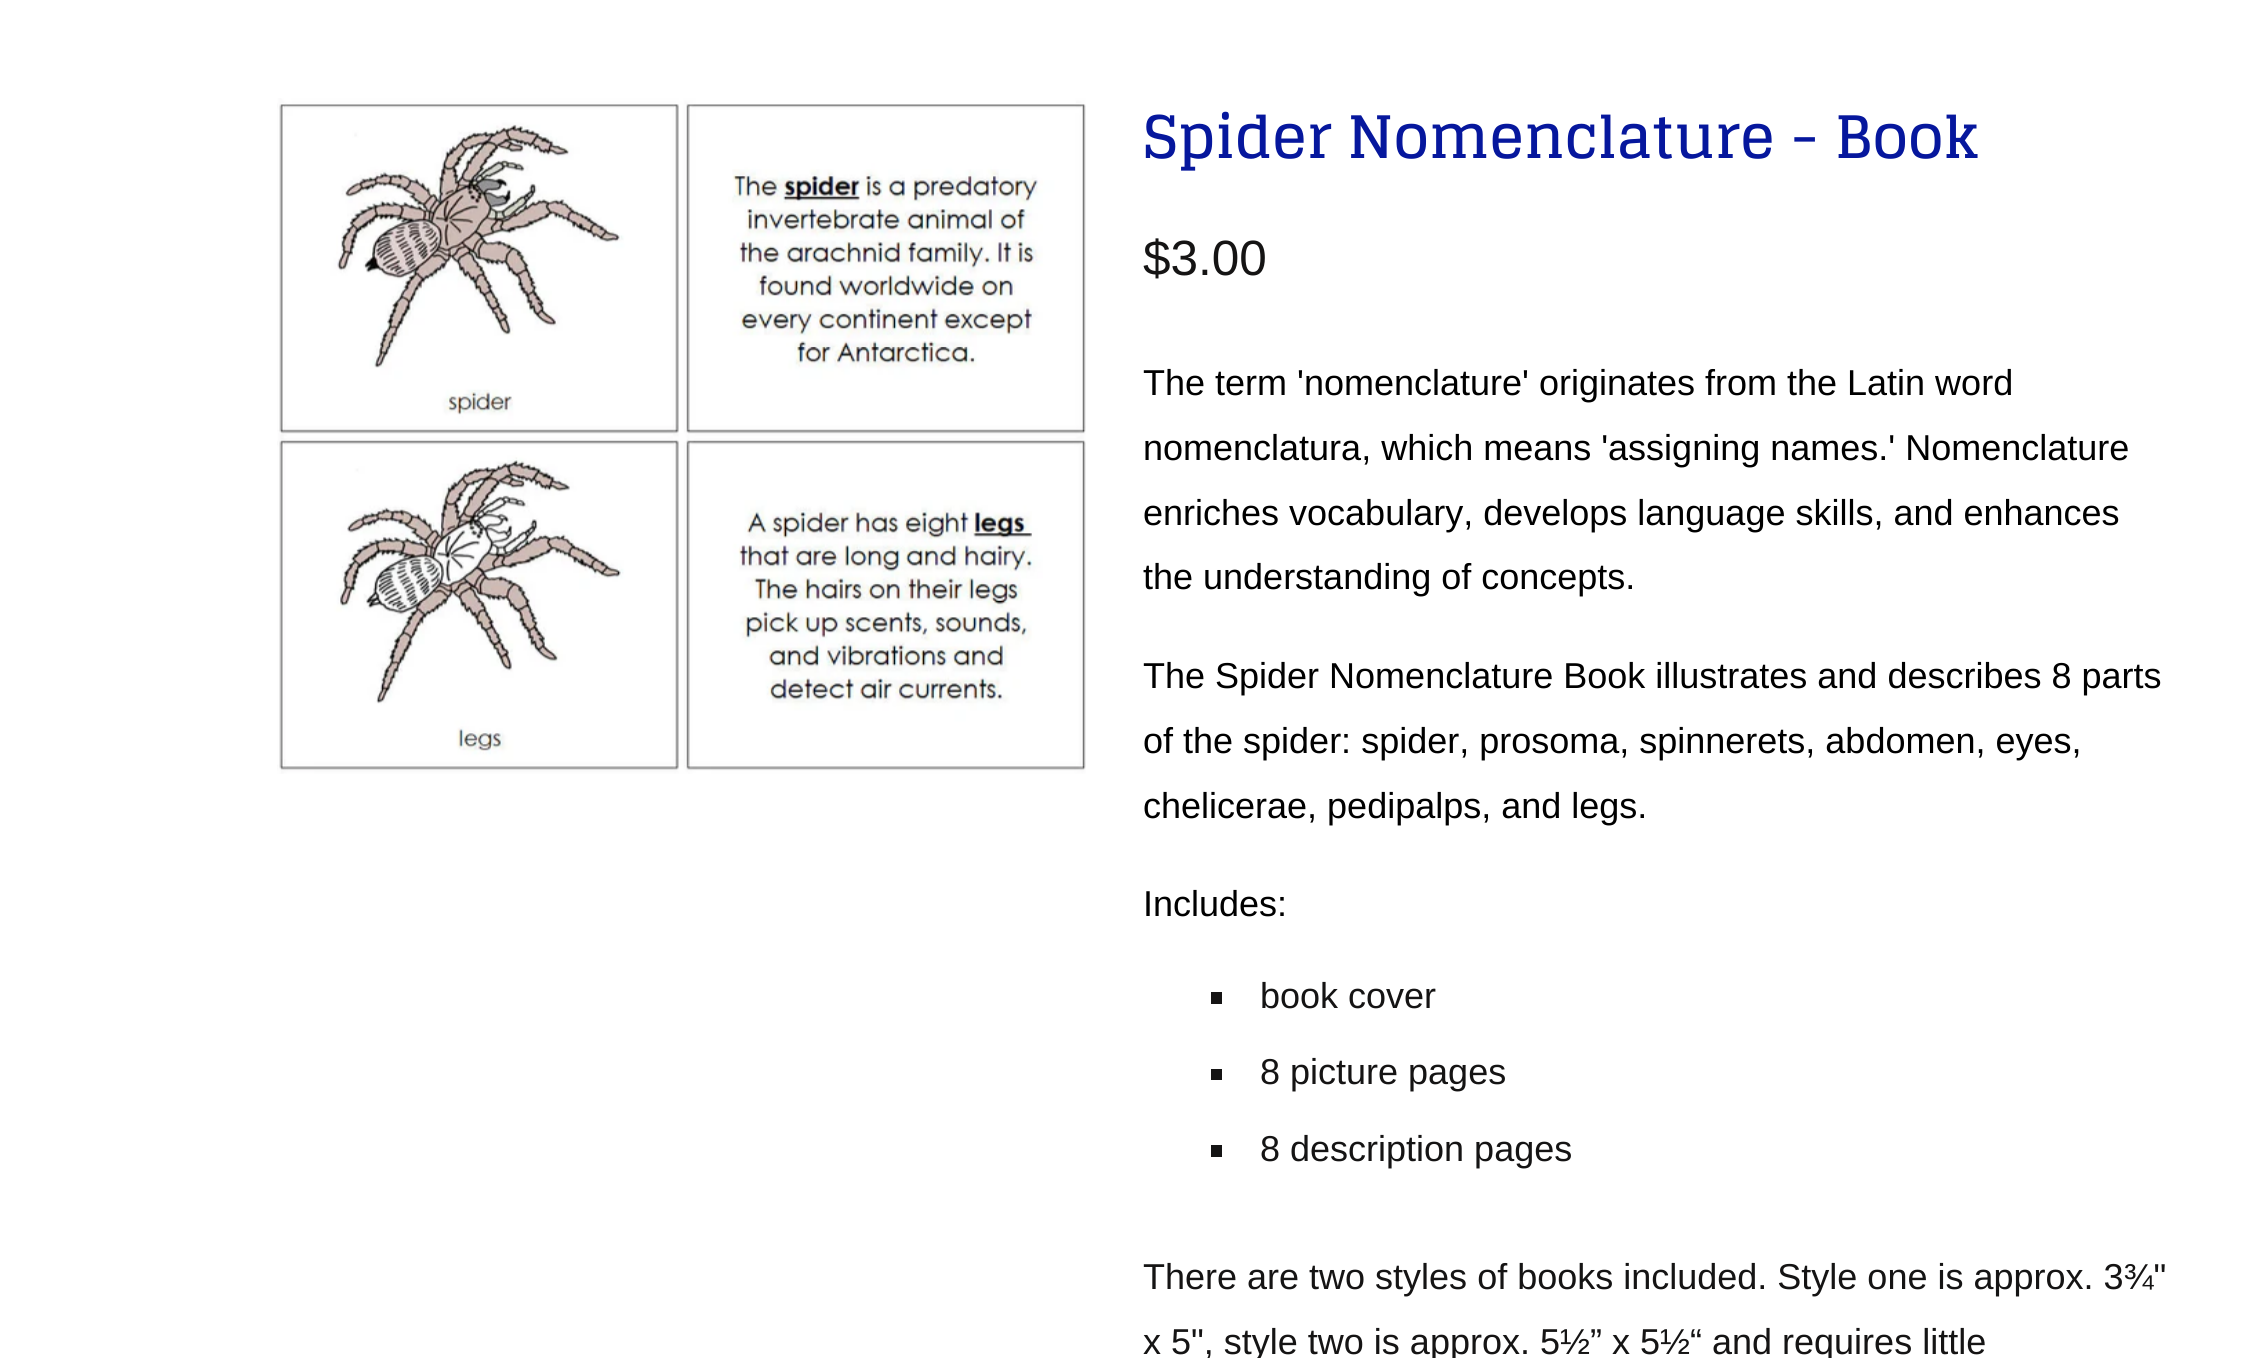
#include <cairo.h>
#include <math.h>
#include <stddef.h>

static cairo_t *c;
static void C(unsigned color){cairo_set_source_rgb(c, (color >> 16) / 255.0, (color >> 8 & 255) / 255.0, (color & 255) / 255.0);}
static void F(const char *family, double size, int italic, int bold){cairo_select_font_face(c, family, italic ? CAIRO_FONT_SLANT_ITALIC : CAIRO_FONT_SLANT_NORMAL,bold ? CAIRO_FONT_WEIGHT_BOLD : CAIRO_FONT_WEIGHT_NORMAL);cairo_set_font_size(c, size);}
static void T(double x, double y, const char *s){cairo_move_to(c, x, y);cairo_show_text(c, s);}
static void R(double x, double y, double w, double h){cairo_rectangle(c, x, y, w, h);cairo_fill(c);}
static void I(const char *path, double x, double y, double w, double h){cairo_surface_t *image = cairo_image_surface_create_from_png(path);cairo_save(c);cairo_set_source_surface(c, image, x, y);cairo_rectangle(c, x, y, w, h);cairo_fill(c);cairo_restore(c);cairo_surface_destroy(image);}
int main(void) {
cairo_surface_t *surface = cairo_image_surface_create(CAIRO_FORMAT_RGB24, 2241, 1358);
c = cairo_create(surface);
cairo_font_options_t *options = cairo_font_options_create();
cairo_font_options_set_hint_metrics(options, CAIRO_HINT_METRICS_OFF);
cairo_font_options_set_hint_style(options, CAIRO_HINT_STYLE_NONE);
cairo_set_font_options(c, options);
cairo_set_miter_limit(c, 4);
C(0xffffff);
cairo_paint(c);
I("1.png",277,98,809,676);
F("Glegoo",58.5,0,1);
C(0x06179d);
T(1143,158,"Spider Nomenclature - Book");
F("Liberation Sans",49.5,0,0);
C(0x151414);
T(1143,275,"$3.00");
F("Liberation Sans",36,0,0);
C(0x000000);
T(1143,395,"The term 'nomenclature' originates from the Latin word");
T(1143,460,"nomenclatura, which means 'assigning names.' Nomenclature");
T(1143,525,"enriches vocabulary, develops language skills, and enhances");
T(1143,589,"the understanding of concepts.");
T(1143,688,"The Spider Nomenclature Book illustrates and describes 8 parts");
T(1143,753,"of the spider: spider, prosoma, spinnerets, abdomen, eyes,");
T(1143,818,"chelicerae, pedipalps, and legs.");
T(1143,916,"Includes:");
C(0x151414);
R(1211,992,11,12);
T(1260,1008,"book cover");
R(1211,1069,11,11);
T(1260,1084,"8 picture pages");
R(1211,1145,11,12);
T(1260,1161,"8 description pages");
T(1143,1289,"There are two styles of books included. Style one is approx. 3¾\"");
T(1143,1354,"x 5\", style two is approx. 5½” x 5½“ and requires little");
cairo_surface_write_to_png(surface, "o.png");
cairo_font_options_destroy(options);
cairo_destroy(c);
cairo_surface_destroy(surface);
return 0;
}
